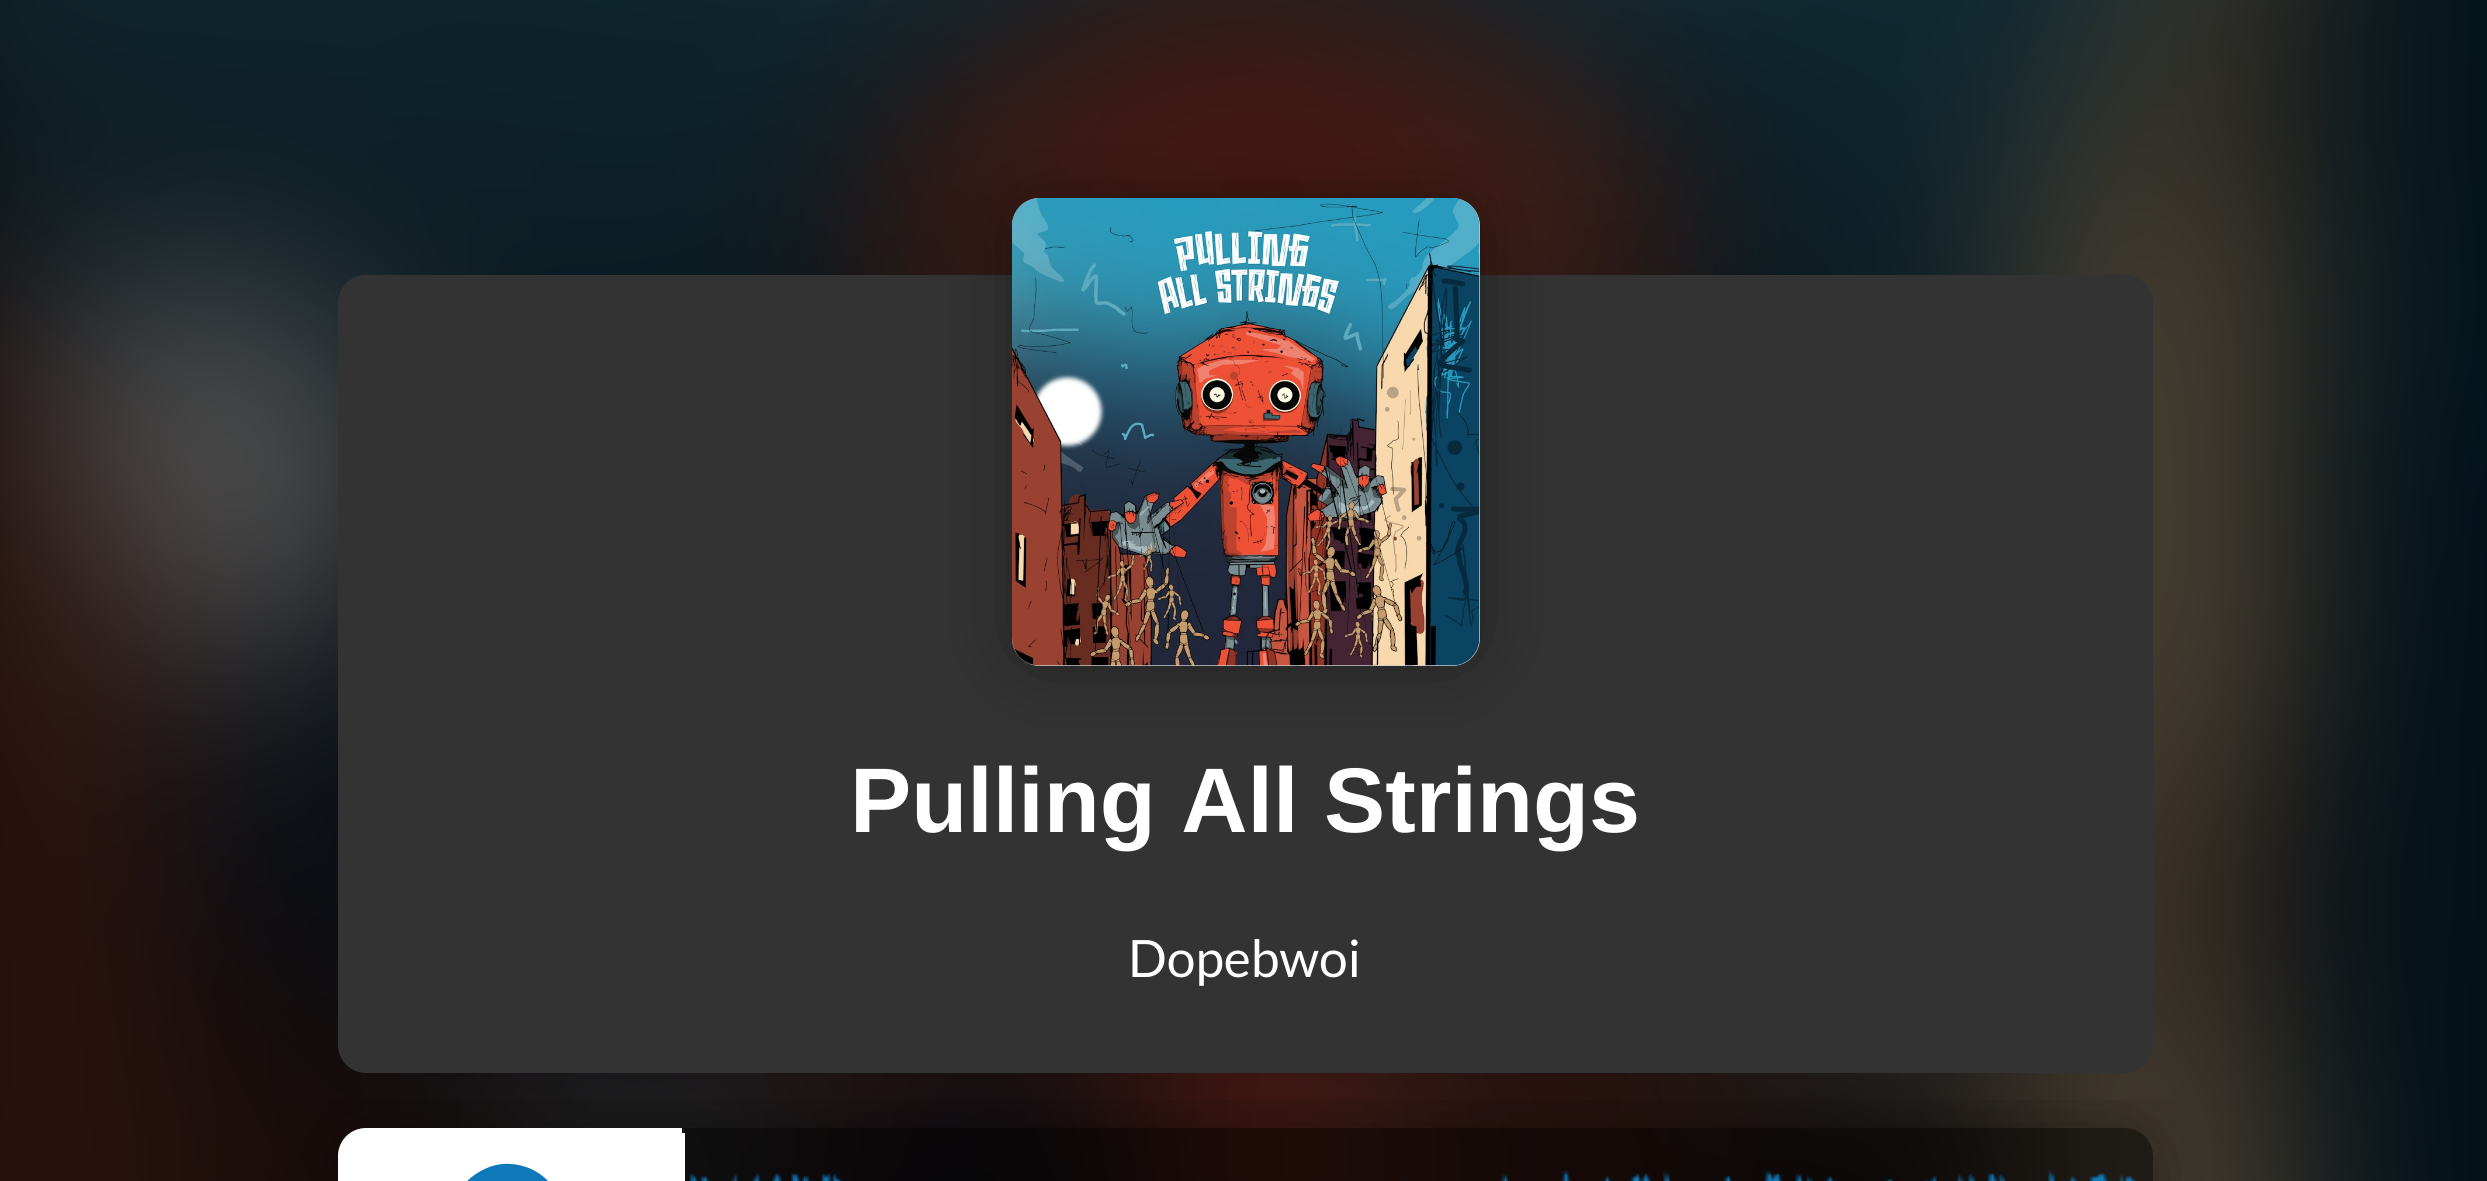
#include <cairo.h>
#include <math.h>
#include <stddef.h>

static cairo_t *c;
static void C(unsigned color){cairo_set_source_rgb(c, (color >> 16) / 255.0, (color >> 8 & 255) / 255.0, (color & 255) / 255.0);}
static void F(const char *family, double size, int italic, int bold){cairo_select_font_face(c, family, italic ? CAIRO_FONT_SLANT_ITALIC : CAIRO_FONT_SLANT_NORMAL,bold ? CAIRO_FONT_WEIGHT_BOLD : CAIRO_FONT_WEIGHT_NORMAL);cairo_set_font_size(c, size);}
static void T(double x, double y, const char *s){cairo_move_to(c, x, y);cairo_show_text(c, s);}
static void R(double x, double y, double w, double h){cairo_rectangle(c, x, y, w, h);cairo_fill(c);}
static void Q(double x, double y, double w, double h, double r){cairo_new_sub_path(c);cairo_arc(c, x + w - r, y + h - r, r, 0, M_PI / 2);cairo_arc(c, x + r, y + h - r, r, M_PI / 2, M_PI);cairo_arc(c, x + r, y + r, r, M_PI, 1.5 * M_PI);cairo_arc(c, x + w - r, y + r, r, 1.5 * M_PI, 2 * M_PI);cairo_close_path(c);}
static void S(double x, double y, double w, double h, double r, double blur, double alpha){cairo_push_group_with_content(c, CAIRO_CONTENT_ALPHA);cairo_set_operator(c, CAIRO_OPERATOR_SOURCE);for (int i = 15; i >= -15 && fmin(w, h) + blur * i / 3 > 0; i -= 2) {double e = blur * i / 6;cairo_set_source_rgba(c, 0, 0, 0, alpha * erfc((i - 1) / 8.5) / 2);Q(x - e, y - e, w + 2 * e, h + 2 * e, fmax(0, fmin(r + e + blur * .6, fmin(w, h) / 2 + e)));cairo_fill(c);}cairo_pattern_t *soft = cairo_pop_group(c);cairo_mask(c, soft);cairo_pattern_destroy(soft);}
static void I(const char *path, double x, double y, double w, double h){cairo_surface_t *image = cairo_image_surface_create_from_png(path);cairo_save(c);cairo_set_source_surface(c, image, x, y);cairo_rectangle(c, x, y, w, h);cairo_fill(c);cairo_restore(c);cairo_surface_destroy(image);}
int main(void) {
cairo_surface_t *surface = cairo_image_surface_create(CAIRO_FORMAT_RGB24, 2487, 1181);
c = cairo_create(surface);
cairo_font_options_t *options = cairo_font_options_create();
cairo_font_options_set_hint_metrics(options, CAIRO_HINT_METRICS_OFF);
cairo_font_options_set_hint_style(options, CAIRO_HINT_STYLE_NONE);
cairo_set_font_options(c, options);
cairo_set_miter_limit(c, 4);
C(0x000000);
cairo_paint(c);
I("1.png",0,0,2487,1181);
C(0x333333);
Q(338,275,1815,798,28);
cairo_fill(c);
C(0x000000);
S(1012,198,468,468,28,34.5,.35);
C(0xcccccc);
Q(1012,198,468,468,28);
cairo_fill(c);
I("2.png",1012,198,468,468);
F("Liberation Sans",91.75,0,1);
C(0xffffff);
T(850,832,"Pulling All Strings");
F("Lato",51.5,0,0);
T(1128,977,"Dopebwoi");
cairo_save(c);
cairo_rectangle(c,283,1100,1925,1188);
cairo_clip(c);
cairo_set_fill_rule(c,CAIRO_FILL_RULE_EVEN_ODD);
cairo_new_path(c);
cairo_move_to(c,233,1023);
cairo_line_to(c,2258,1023);
cairo_line_to(c,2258,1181);
cairo_line_to(c,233,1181);
cairo_close_path(c);
cairo_move_to(c,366,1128);
cairo_line_to(c,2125,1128);
cairo_curve_to(c,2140.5,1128,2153,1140.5,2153,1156);
cairo_line_to(c,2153,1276);
cairo_curve_to(c,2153,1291.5,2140.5,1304,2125,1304);
cairo_line_to(c,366,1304);
cairo_curve_to(c,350.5,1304,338,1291.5,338,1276);
cairo_line_to(c,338,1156);
cairo_curve_to(c,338,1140.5,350.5,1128,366,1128);
cairo_close_path(c);
cairo_clip(c);
C(0x000000);
S(338,1128,1815,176,28,34.5,.35);
cairo_restore(c);
cairo_new_path(c);
cairo_move_to(c,366,1128);
cairo_line_to(c,682,1128);
cairo_line_to(c,682,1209);
cairo_line_to(c,366,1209);
cairo_curve_to(c,350.5,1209,338,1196.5,338,1181);
cairo_line_to(c,338,1156);
cairo_curve_to(c,338,1140.5,350.5,1128,366,1128);
cairo_close_path(c);
cairo_fill(c);
C(0x0f78b8);
cairo_new_path(c);
cairo_move_to(c,479,1172);
cairo_curve_to(c,489,1166,500,1163,511,1164);
cairo_curve_to(c,567,1168,584,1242,536,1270);
cairo_curve_to(c,526,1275,515,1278,504,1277);
cairo_curve_to(c,448,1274,431,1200,479,1172);
cairo_close_path(c);
cairo_move_to(c,536,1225);
cairo_curve_to(c,537,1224,538,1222,538,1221);
cairo_curve_to(c,538,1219,537,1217,536,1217);
cairo_line_to(c,496,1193);
cairo_curve_to(c,494,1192,493,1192,491,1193);
cairo_curve_to(c,490,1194,489,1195,489,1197);
cairo_line_to(c,489,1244);
cairo_curve_to(c,489,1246,490,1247,491,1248);
cairo_line_to(c,493,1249);
cairo_line_to(c,496,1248);
cairo_close_path(c);
cairo_fill(c);
cairo_set_source_rgba(c,0,0,0,0.5);
cairo_new_path(c);
cairo_move_to(c,682,1128);
cairo_line_to(c,2125,1128);
cairo_curve_to(c,2140.5,1128,2153,1140.5,2153,1156);
cairo_line_to(c,2153,1181);
cairo_curve_to(c,2153,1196.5,2140.5,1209,2125,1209);
cairo_line_to(c,682,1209);
cairo_close_path(c);
cairo_fill(c);
C(0xffffff);
R(682,1133,3,48);
I("3.png",689,1170,1448,11);
cairo_surface_write_to_png(surface, "o.png");
cairo_font_options_destroy(options);
cairo_destroy(c);
cairo_surface_destroy(surface);
return 0;
}
